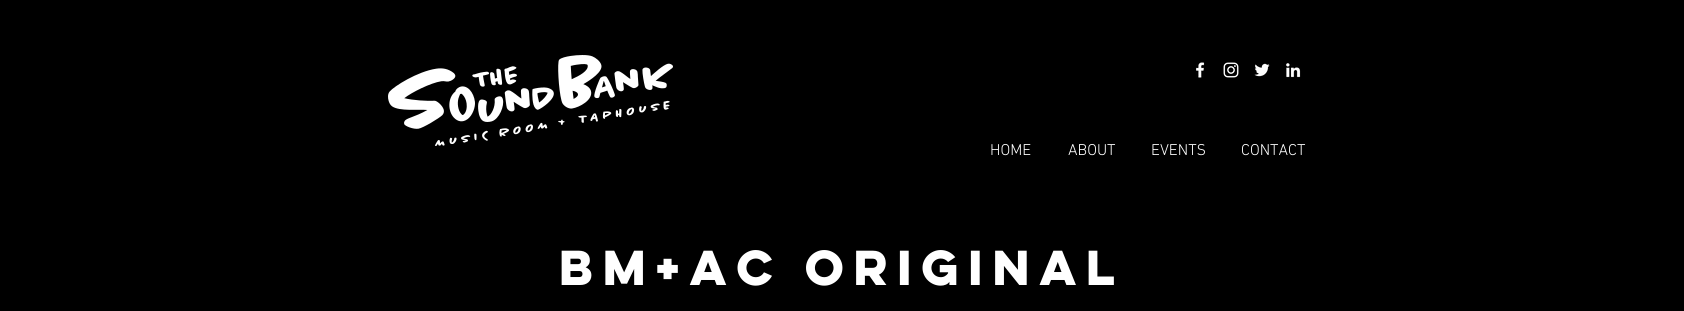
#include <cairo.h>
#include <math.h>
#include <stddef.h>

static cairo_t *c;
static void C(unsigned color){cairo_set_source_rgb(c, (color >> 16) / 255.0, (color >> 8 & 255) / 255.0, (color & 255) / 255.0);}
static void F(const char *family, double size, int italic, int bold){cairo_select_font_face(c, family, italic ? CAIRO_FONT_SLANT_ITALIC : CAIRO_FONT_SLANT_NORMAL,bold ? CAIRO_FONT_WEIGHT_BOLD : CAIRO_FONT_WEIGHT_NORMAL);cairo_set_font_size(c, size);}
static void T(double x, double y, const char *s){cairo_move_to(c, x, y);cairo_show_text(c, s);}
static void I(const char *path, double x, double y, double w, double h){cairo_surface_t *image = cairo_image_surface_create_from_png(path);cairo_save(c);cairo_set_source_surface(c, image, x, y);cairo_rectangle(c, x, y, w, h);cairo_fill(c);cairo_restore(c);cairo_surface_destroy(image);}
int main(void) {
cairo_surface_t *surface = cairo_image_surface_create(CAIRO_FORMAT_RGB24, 1684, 311);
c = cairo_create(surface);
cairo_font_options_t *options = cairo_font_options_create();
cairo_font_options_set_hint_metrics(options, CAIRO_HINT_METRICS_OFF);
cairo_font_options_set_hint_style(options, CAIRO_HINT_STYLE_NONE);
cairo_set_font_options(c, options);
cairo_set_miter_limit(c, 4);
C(0x000000);
cairo_paint(c);
I("1.png",388,55,285,91);
I("2.png",1196,62,9,16);
I("3.png",1223,62,16,16);
I("4.png",1254,63,16,14);
I("5.png",1286,63,15,15);
F("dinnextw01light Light",16,0,0);
C(0xffffff);
T(990,155,"HOME");
T(1068,155,"ABOUT");
T(1151,155,"EVENTS");
T(1241,155,"CONTACT");
F("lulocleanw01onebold",44,0,1);
T(559,285,"BM+AC Original");
cairo_surface_write_to_png(surface, "o.png");
cairo_font_options_destroy(options);
cairo_destroy(c);
cairo_surface_destroy(surface);
return 0;
}
